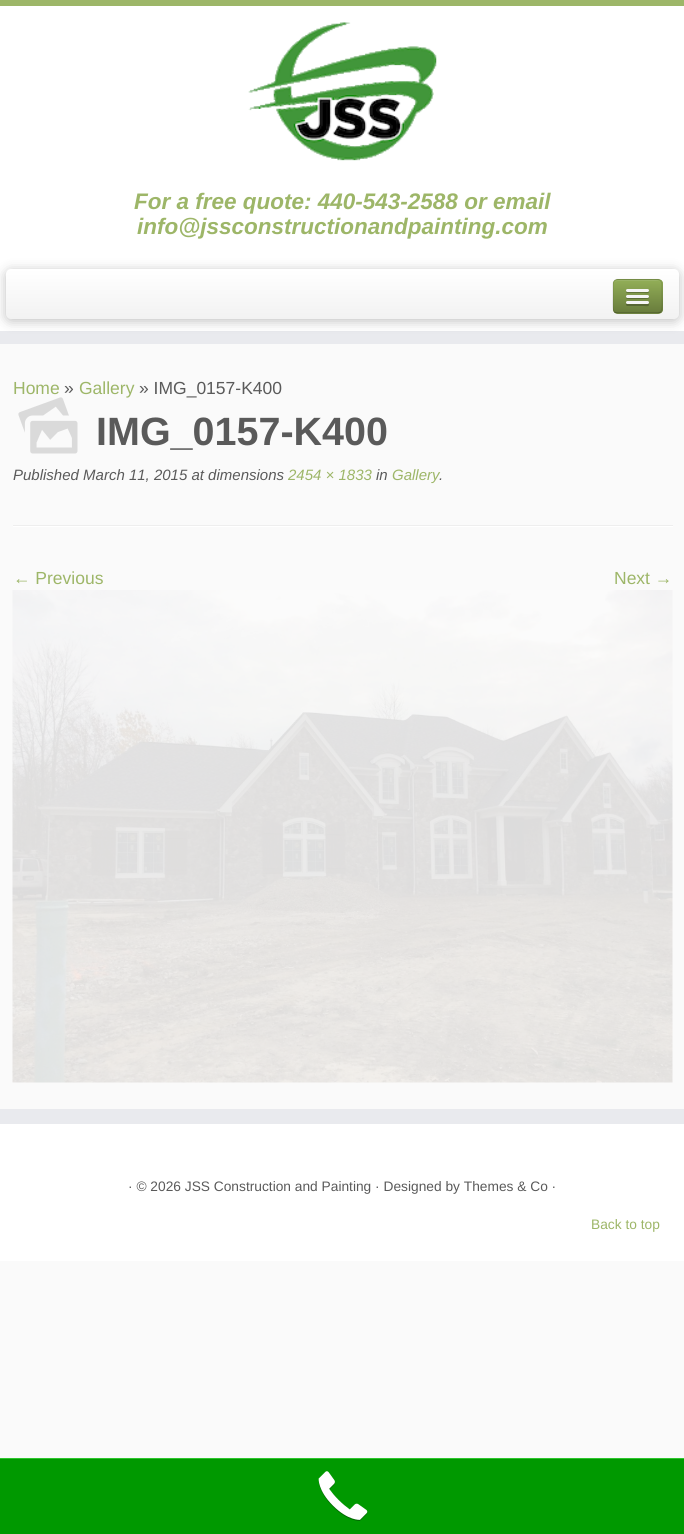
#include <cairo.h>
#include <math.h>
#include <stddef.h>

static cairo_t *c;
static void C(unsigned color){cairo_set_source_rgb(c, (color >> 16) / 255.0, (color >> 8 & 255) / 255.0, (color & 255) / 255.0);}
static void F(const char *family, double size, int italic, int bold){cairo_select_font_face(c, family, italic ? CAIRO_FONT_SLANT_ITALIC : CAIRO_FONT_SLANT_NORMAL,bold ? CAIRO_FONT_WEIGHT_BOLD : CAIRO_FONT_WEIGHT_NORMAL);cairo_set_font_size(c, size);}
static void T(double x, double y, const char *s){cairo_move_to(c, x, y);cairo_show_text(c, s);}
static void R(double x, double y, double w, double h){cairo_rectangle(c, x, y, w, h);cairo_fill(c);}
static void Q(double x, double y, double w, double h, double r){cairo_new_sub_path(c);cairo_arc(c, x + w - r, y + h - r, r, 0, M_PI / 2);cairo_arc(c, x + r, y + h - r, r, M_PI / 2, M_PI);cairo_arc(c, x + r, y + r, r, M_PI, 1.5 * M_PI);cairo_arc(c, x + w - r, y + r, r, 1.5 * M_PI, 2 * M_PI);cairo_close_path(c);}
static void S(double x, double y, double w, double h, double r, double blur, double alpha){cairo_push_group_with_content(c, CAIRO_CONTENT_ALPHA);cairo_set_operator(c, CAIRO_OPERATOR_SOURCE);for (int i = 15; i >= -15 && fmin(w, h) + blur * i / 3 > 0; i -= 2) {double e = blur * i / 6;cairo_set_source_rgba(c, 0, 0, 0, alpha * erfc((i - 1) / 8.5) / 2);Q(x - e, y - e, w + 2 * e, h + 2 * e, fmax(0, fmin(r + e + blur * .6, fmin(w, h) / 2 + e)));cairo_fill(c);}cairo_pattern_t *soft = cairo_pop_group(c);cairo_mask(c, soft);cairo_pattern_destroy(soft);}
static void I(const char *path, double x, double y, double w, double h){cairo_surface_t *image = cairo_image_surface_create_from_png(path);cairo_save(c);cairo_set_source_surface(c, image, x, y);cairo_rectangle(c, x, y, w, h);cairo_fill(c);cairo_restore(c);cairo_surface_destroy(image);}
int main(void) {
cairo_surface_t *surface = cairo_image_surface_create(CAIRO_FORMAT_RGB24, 684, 1534);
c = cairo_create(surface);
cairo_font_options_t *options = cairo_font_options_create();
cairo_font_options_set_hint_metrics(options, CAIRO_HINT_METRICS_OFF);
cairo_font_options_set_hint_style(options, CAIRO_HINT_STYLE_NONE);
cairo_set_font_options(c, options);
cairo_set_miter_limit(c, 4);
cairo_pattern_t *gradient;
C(0xfafafa);
cairo_paint(c);
C(0xffffff);
R(0,6,684,325);
C(0x9db668);
R(0,0,684,6);
C(0xe9eaee);
R(0,331,684,13);
I("1.png",248,22,189,139);
F("Liberation Sans",22.5,1,1);
C(0x9db668);
T(134,209,"For a free quote: 440-543-2588 or email");
T(137,234,"info@jssconstructionandpainting.com");
C(0x000000);
S(6,271,673,50,5,6,.25);
gradient = cairo_pattern_create_linear(343,269,343,319);
cairo_pattern_add_color_stop_rgba(gradient,0,1,1,1,1);
cairo_pattern_add_color_stop_rgba(gradient,1,0.949,0.949,0.949,1);
cairo_set_source(c,gradient);
cairo_pattern_destroy(gradient);
Q(6,269,673,50,5);
cairo_fill(c);
C(0x819a4c);
Q(613,279,50,35,5);
cairo_fill(c);
cairo_save(c);
Q(613,279,50,35,5);
cairo_clip(c);
gradient = cairo_pattern_create_linear(638,280,638,313);
cairo_pattern_add_color_stop_rgba(gradient,0,0.573,0.682,0.341,1);
cairo_pattern_add_color_stop_rgba(gradient,1,0.408,0.486,0.235,1);
cairo_set_source(c,gradient);
cairo_pattern_destroy(gradient);
R(613,280,50,33);
cairo_restore(c);
C(0x9cb568);
cairo_new_path(c);
cairo_move_to(c,618,281);
cairo_line_to(c,658,281);
cairo_curve_to(c,660,281,661,283,661,285);
cairo_curve_to(c,661,279,655,280,650,280);
cairo_line_to(c,624,280);
cairo_curve_to(c,620,280,614,279,614,285);
cairo_curve_to(c,614,283,615,281,618,281);
cairo_close_path(c);
cairo_fill(c);
cairo_new_path(c);
cairo_move_to(c,660.5,312);
cairo_curve_to(c,660,312.5,658.5,313,657.5,313);
cairo_line_to(c,617.5,313);
cairo_curve_to(c,616.5,313,615,312.5,614.5,312);
cairo_set_source_rgba(c,0,0,0,0.25);
cairo_set_line_width(c,1.2);
cairo_stroke(c);
cairo_new_path(c);
cairo_move_to(c,614.5,312);
cairo_curve_to(c,612,309.5,613,299.5,613,296);
cairo_line_to(c,613,288);
cairo_curve_to(c,613,285,612.5,280.5,616.5,279.5);
cairo_line_to(c,658.5,279.5);
cairo_curve_to(c,662.5,280.5,662,285,662,288);
cairo_line_to(c,662,296);
cairo_curve_to(c,662,299.5,663,309.5,660.5,312);
cairo_set_source_rgba(c,0,0,0,0.1);
cairo_stroke(c);
C(0x62753a);
cairo_new_path(c);
cairo_move_to(c,626.5,290.5);
cairo_line_to(c,626,292);
cairo_curve_to(c,626.5,294,630,293,631,293);
cairo_line_to(c,644,293);
cairo_curve_to(c,645,293,648.5,294,649,292);
cairo_line_to(c,648.5,290.5);
cairo_curve_to(c,648.5,291,648,291,647.5,291);
cairo_line_to(c,627.5,291);
cairo_curve_to(c,627,291,626.5,291,626.5,290.5);
cairo_close_path(c);
cairo_fill(c);
C(0xf5f5f5);
Q(626,289,23,3,1.5);
cairo_fill(c);
C(0x5c6e36);
cairo_new_path(c);
cairo_move_to(c,626.5,296.5);
cairo_curve_to(c,624,299.5,630.5,299,631,299);
cairo_line_to(c,644,299);
cairo_curve_to(c,644.5,299,651,299.5,648.5,296.5);
cairo_curve_to(c,648.5,297,648,297.5,647.5,297.5);
cairo_line_to(c,627.5,297.5);
cairo_curve_to(c,627,297.5,626.5,297,626.5,296.5);
cairo_close_path(c);
cairo_fill(c);
C(0xf5f5f5);
Q(626,295,23,3,1.5);
cairo_fill(c);
C(0x566632);
cairo_new_path(c);
cairo_move_to(c,626.5,303.5);
cairo_curve_to(c,625.5,304,626,305.5,627,306);
cairo_line_to(c,644,306);
cairo_curve_to(c,645,306,648.5,307,649,305);
cairo_curve_to(c,649,304.5,649,303.5,648.5,303.5);
cairo_curve_to(c,647.5,304,627.5,304,626.5,303.5);
cairo_close_path(c);
cairo_fill(c);
C(0xf5f5f5);
Q(626,301,23,3,1.5);
cairo_fill(c);
F("Liberation Sans",17.5,0,0);
C(0x9db668);
T(13,394,"Home");
C(0x5a5a5a);
T(64,394,"»");
C(0x9db668);
T(79,394,"Gallery");
C(0x5a5a5a);
T(139,394,"» IMG_0157-K400");
I("2.png",18,397,60,57);
F("Liberation Sans",39.5,0,1);
T(96,445,"IMG_0157-K400");
F("Liberation Sans",15,1,0);
T(13,480,"Published March 11, 2015 at dimensions");
C(0x9db668);
T(288,480,"2454 × 1833");
C(0x5a5a5a);
T(376,480,"in");
C(0x9db668);
T(392,480,"Gallery");
C(0x5a5a5a);
T(439,480,".");
C(0xeeeeee);
R(13,525,660,1);
C(0xffffff);
R(13,526,660,1);
F("Liberation Sans",17.5,0,0);
C(0x9db668);
T(13,584,"← Previous");
T(614,584,"Next →");
I("3.png",12,590,661,493);
C(0xe9eaee);
R(0,1109,684,15);
C(0xffffff);
R(0,1124,684,137);
F("Liberation Sans",13.75,0,0);
C(0x5a5a5a);
T(128,1191,"· © 2026 JSS Construction and Painting · Designed by Themes & Co ·");
C(0x9db668);
T(591,1229,"Back to top");
C(0x009900);
R(0,1459,684,75);
I("4.png",318,1471,50,50);
C(0x2dc62d);
R(0,1458,684,1);
cairo_surface_write_to_png(surface, "o.png");
cairo_font_options_destroy(options);
cairo_destroy(c);
cairo_surface_destroy(surface);
return 0;
}
